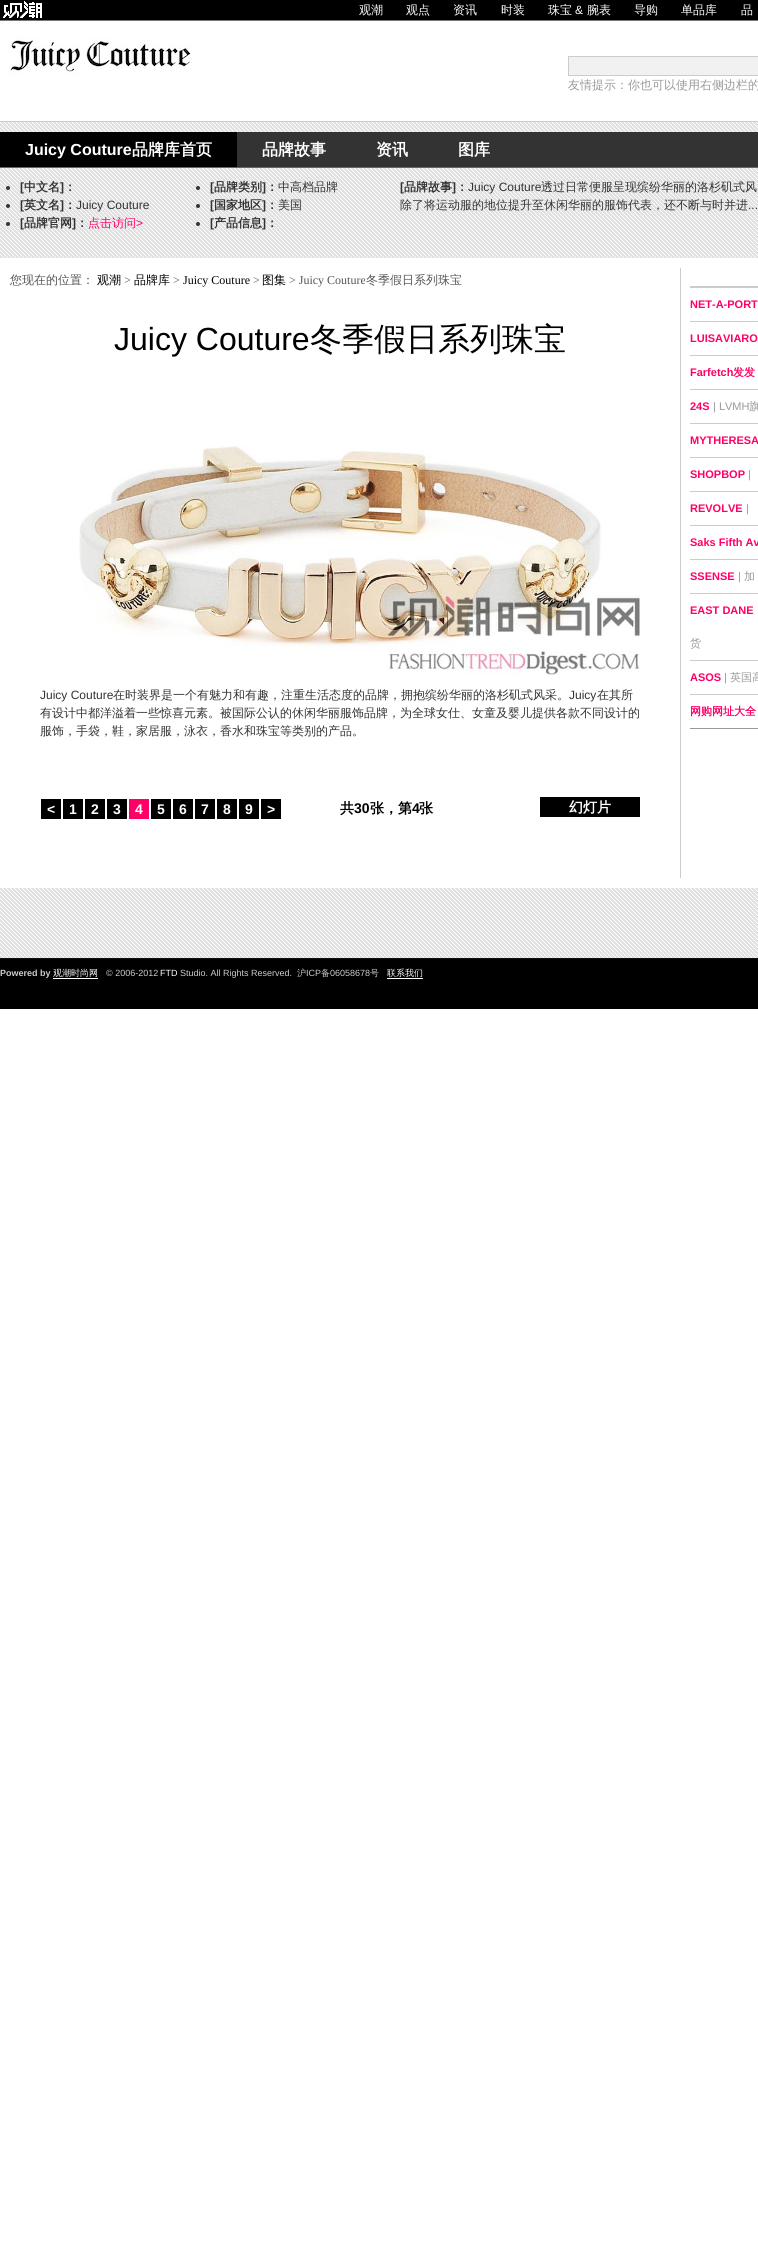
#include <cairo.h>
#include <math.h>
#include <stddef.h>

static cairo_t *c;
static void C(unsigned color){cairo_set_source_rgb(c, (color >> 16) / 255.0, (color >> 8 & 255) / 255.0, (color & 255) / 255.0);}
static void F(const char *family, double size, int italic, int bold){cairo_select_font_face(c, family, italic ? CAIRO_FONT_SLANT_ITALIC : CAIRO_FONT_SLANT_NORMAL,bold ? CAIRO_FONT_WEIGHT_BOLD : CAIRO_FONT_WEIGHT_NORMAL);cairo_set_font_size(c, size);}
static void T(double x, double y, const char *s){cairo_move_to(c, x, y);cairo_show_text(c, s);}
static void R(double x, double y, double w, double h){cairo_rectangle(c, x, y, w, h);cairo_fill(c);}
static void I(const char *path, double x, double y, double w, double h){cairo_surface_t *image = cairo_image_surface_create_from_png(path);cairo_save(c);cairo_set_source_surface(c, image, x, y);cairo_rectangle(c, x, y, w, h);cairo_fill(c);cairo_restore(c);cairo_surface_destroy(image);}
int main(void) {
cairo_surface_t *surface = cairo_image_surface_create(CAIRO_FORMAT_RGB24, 758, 2263);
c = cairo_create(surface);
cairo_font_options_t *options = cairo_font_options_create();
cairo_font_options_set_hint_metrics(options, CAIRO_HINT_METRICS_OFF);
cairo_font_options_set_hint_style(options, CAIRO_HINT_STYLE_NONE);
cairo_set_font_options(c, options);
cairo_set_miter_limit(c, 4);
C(0xffffff);
cairo_paint(c);
C(0x000000);
R(0,0,758,20);
C(0x777777);
R(0,20,758,1);
I("1.png",3,1,39,17);
F("WenQuanYi Zen Hei Medium",12,0,0);
C(0xffffff);
T(359,14,"观潮");
T(406,14,"观点");
T(453,14,"资讯");
T(501,14,"时装");
T(548,14,"珠宝");
F("Liberation Sans",12,0,0);
T(575,14,"&");
F("WenQuanYi Zen Hei Medium",12,0,0);
T(587,14,"腕表");
T(634,14,"导购");
T(681,14,"单品库");
T(741,14,"品");
I("2.png",9,37,183,39);
C(0xf1f1f1);
cairo_rectangle(c,568.5,56.5,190,19);
cairo_fill_preserve(c);
C(0xcccccc);
cairo_set_line_width(c,1);
cairo_stroke(c);
C(0x999999);
T(568,89,"友情提示：你也可以使用右侧边栏的");
I("3.png",0,122,758,836);
C(0xcccccc);
R(0,121,758,1);
C(0x333333);
R(237,132,521,35);
C(0x666666);
R(0,167,758,1);
C(0x000000);
R(0,132,237,35);
F("Liberation Sans",16,0,1);
C(0xffffff);
T(25,155,"Juicy Couture");
F("WenQuanYi Zen Hei",16,0,1);
T(132,155,"品牌库首页");
T(262,155,"品牌故事");
T(376,155,"资讯");
T(458,155,"图库");
C(0x333333);
cairo_new_path(c);
cairo_arc(c,8,188,2,0,2 * M_PI);
cairo_fill(c);
F("Liberation Sans",12,0,1);
T(20,191,"[");
F("WenQuanYi Zen Hei",12,0,1);
T(24,191,"中文名");
F("Liberation Sans",12,0,1);
T(60,191,"]");
F("WenQuanYi Zen Hei",12,0,1);
T(64,191,"：");
cairo_new_path(c);
cairo_arc(c,8,206,2,0,2 * M_PI);
cairo_fill(c);
F("Liberation Sans",12,0,1);
T(20,209,"[");
F("WenQuanYi Zen Hei",12,0,1);
T(24,209,"英文名");
F("Liberation Sans",12,0,1);
T(60,209,"]");
F("WenQuanYi Zen Hei",12,0,1);
T(64,209,"：");
F("Liberation Sans",12,0,0);
T(76,209,"Juicy Couture");
cairo_new_path(c);
cairo_arc(c,8,224,2,0,2 * M_PI);
cairo_fill(c);
F("Liberation Sans",12,0,1);
T(20,227,"[");
F("WenQuanYi Zen Hei",12,0,1);
T(24,227,"品牌官网");
F("Liberation Sans",12,0,1);
T(72,227,"]");
F("WenQuanYi Zen Hei",12,0,1);
T(76,227,"：");
F("WenQuanYi Zen Hei Medium",12,0,0);
C(0xff0066);
T(88,227,"点击访问");
F("Liberation Sans",12,0,0);
T(136,227,">");
C(0x333333);
cairo_new_path(c);
cairo_arc(c,198,188,2,0,2 * M_PI);
cairo_fill(c);
F("Liberation Sans",12,0,1);
T(210,191,"[");
F("WenQuanYi Zen Hei",12,0,1);
T(214,191,"品牌类别");
F("Liberation Sans",12,0,1);
T(262,191,"]");
F("WenQuanYi Zen Hei",12,0,1);
T(266,191,"：");
F("WenQuanYi Zen Hei Medium",12,0,0);
T(278,191,"中高档品牌");
cairo_new_path(c);
cairo_arc(c,198,206,2,0,2 * M_PI);
cairo_fill(c);
F("Liberation Sans",12,0,1);
T(210,209,"[");
F("WenQuanYi Zen Hei",12,0,1);
T(214,209,"国家地区");
F("Liberation Sans",12,0,1);
T(262,209,"]");
F("WenQuanYi Zen Hei",12,0,1);
T(266,209,"：");
F("WenQuanYi Zen Hei Medium",12,0,0);
T(278,209,"美国");
cairo_new_path(c);
cairo_arc(c,198,224,2,0,2 * M_PI);
cairo_fill(c);
F("Liberation Sans",12,0,1);
T(210,227,"[");
F("WenQuanYi Zen Hei",12,0,1);
T(214,227,"产品信息");
F("Liberation Sans",12,0,1);
T(262,227,"]");
F("WenQuanYi Zen Hei",12,0,1);
T(266,227,"：");
F("Liberation Sans",12,0,1);
T(400,191,"[");
F("WenQuanYi Zen Hei",12,0,1);
T(404,191,"品牌故事");
F("Liberation Sans",12,0,1);
T(452,191,"]");
F("WenQuanYi Zen Hei",12,0,1);
T(456,191,"：");
F("Liberation Sans",12,0,0);
T(468,191,"Juicy Couture");
F("WenQuanYi Zen Hei Medium",12,0,0);
T(541,191,"透过日常便服呈现缤纷华丽的洛杉矶式风");
T(400,209,"除了将运动服的地位提升至休闲华丽的服饰代表，还不断与时并进");
F("Liberation Sans",12,0,0);
T(748,209,"...");
C(0xffffff);
R(0,258,758,630);
C(0xcccccc);
R(680,268,1,610);
F("WenQuanYi Zen Hei Medium",12,0,0);
C(0x555555);
T(10,284,"您现在的位置：");
C(0x000000);
T(97,284,"观潮");
F("Liberation Serif",12,0,0);
C(0x555555);
T(124,284,">");
F("WenQuanYi Zen Hei Medium",12,0,0);
C(0x000000);
T(134,284,"品牌库");
F("Liberation Serif",12,0,0);
C(0x555555);
T(173,284,">");
C(0x000000);
T(183,284,"Juicy Couture");
C(0x555555);
T(253,284,">");
F("WenQuanYi Zen Hei Medium",12,0,0);
C(0x000000);
T(262,284,"图集");
F("Liberation Serif",12,0,0);
C(0x555555);
T(289,284,"> Juicy Couture");
F("WenQuanYi Zen Hei Medium",12,0,0);
T(366,284,"冬季假日系列珠宝");
F("Liberation Sans",32,0,0);
C(0x000000);
T(114,350,"Juicy Couture");
F("WenQuanYi Zen Hei Medium",32,0,0);
T(310,350,"冬季假日系列珠宝");
I("4.png",79,446,561,229);
F("Liberation Sans",12,0,0);
C(0x333333);
T(40,699,"Juicy Couture");
F("WenQuanYi Zen Hei Medium",12,0,0);
T(113,699,"在时装界是一个有魅力和有趣，注重生活态度的品牌，拥抱缤纷华丽的洛杉矶式风采。");
F("Liberation Sans",12,0,0);
T(569,699,"Juicy");
F("WenQuanYi Zen Hei Medium",12,0,0);
T(597,699,"在其所");
T(40,717,"有设计中都洋溢着一些惊喜元素。被国际公认的休闲华丽服饰品牌，为全球女仕、女童及婴儿提供各款不同设计的");
T(40,735,"服饰，手袋，鞋，家居服，泳衣，香水和珠宝等类别的产品。");
C(0x000000);
R(41,799,20,20);
F("Liberation Sans",14,0,1);
C(0xffffff);
T(47,814,"<");
C(0x000000);
R(63,799,20,20);
C(0xffffff);
T(69,814,"1");
C(0x000000);
R(85,799,20,20);
C(0xffffff);
T(91,814,"2");
C(0x000000);
R(107,799,20,20);
C(0xffffff);
T(113,814,"3");
C(0xff0066);
R(129,799,20,20);
C(0xffffff);
T(135,814,"4");
C(0x000000);
R(151,799,20,20);
C(0xffffff);
T(157,814,"5");
C(0x000000);
R(173,799,20,20);
C(0xffffff);
T(179,814,"6");
C(0x000000);
R(195,799,20,20);
C(0xffffff);
T(201,814,"7");
C(0x000000);
R(217,799,20,20);
C(0xffffff);
T(223,814,"8");
C(0x000000);
R(239,799,20,20);
C(0xffffff);
T(245,814,"9");
C(0x000000);
R(261,799,20,20);
C(0xffffff);
T(267,814,">");
F("WenQuanYi Zen Hei",14,0,1);
C(0x000000);
T(340,813,"共");
F("Liberation Sans",14,0,1);
T(354,813,"30");
F("WenQuanYi Zen Hei",14,0,1);
T(370,813,"张，第");
F("Liberation Sans",14,0,1);
T(412,813,"4");
F("WenQuanYi Zen Hei",14,0,1);
T(419,813,"张");
R(540,797,100,20);
C(0xffffff);
T(569,812,"幻灯片");
C(0x999999);
R(690,728,68,1);
C(0xcccccc);
R(690,286,68,2);
F("Liberation Sans",11,0,1);
C(0xff0066);
T(690,308,"NET-A-PORT");
C(0xcccccc);
R(690,321,68,1);
C(0xff0066);
T(690,342,"LUISAVIARO");
C(0xcccccc);
R(690,355,68,1);
C(0xff0066);
T(690,376,"Farfetch");
F("WenQuanYi Zen Hei",11,0,1);
T(733,376,"发发");
C(0xcccccc);
R(690,389,68,1);
F("Liberation Sans",11,0,1);
C(0xff0066);
T(690,410,"24S");
F("Liberation Sans",11,0,0);
C(0x999999);
T(713,410,"| LVMH");
F("WenQuanYi Zen Hei Medium",11,0,0);
T(749,410,"旗");
C(0xcccccc);
R(690,423,68,1);
F("Liberation Sans",11,0,1);
C(0xff0066);
T(690,444,"MYTHERESA");
C(0xcccccc);
R(690,457,68,1);
C(0xff0066);
T(690,478,"SHOPBOP");
F("Liberation Sans",11,0,0);
C(0x999999);
T(748,478,"|");
C(0xcccccc);
R(690,491,68,1);
F("Liberation Sans",11,0,1);
C(0xff0066);
T(690,512,"REVOLVE");
F("Liberation Sans",11,0,0);
C(0x999999);
T(746,512,"|");
C(0xcccccc);
R(690,525,68,1);
F("Liberation Sans",11,0,1);
C(0xff0066);
T(690,546,"Saks Fifth Av");
C(0xcccccc);
R(690,559,68,1);
C(0xff0066);
T(690,580,"SSENSE");
F("Liberation Sans",11,0,0);
C(0x999999);
T(738,580,"|");
F("WenQuanYi Zen Hei Medium",11,0,0);
T(744,580,"加");
C(0xcccccc);
R(690,593,68,1);
F("Liberation Sans",11,0,1);
C(0xff0066);
T(690,614,"EAST DANE");
F("WenQuanYi Zen Hei Medium",11,0,0);
C(0x999999);
T(690,647,"货");
C(0xcccccc);
R(690,660,68,1);
F("Liberation Sans",11,0,1);
C(0xff0066);
T(690,681,"ASOS");
F("Liberation Sans",11,0,0);
C(0x999999);
T(724,681,"|");
F("WenQuanYi Zen Hei Medium",11,0,0);
T(730,681,"英国高");
C(0xcccccc);
R(690,694,68,1);
F("WenQuanYi Zen Hei",11,0,1);
C(0xff0066);
T(690,715,"网购网址大全");
C(0x000000);
R(0,959,758,50);
C(0x0f0f0f);
R(0,958,758,1);
F("Liberation Sans",9,0,1);
C(0xcccccc);
T(0,976,"Powered by");
F("WenQuanYi Zen Hei Medium",9,0,0);
C(0xffffff);
T(53,976,"观潮时尚网");
R(53,978,45,1);
F("Liberation Sans",9,0,0);
C(0xcccccc);
T(106,976,"© 2006-2012");
C(0xffffff);
T(160,976,"FTD");
C(0xcccccc);
T(180,976,"Studio. All Rights Reserved.");
F("WenQuanYi Zen Hei Medium",9,0,0);
T(297,976,"沪");
F("Liberation Sans",9,0,0);
T(306,976,"ICP");
F("WenQuanYi Zen Hei Medium",9,0,0);
T(321,976,"备");
F("Liberation Sans",9,0,0);
T(330,976,"06058678");
F("WenQuanYi Zen Hei Medium",9,0,0);
T(370,976,"号");
C(0xffffff);
T(387,976,"联系我们");
R(387,978,36,1);
cairo_surface_write_to_png(surface, "o.png");
cairo_font_options_destroy(options);
cairo_destroy(c);
cairo_surface_destroy(surface);
return 0;
}
